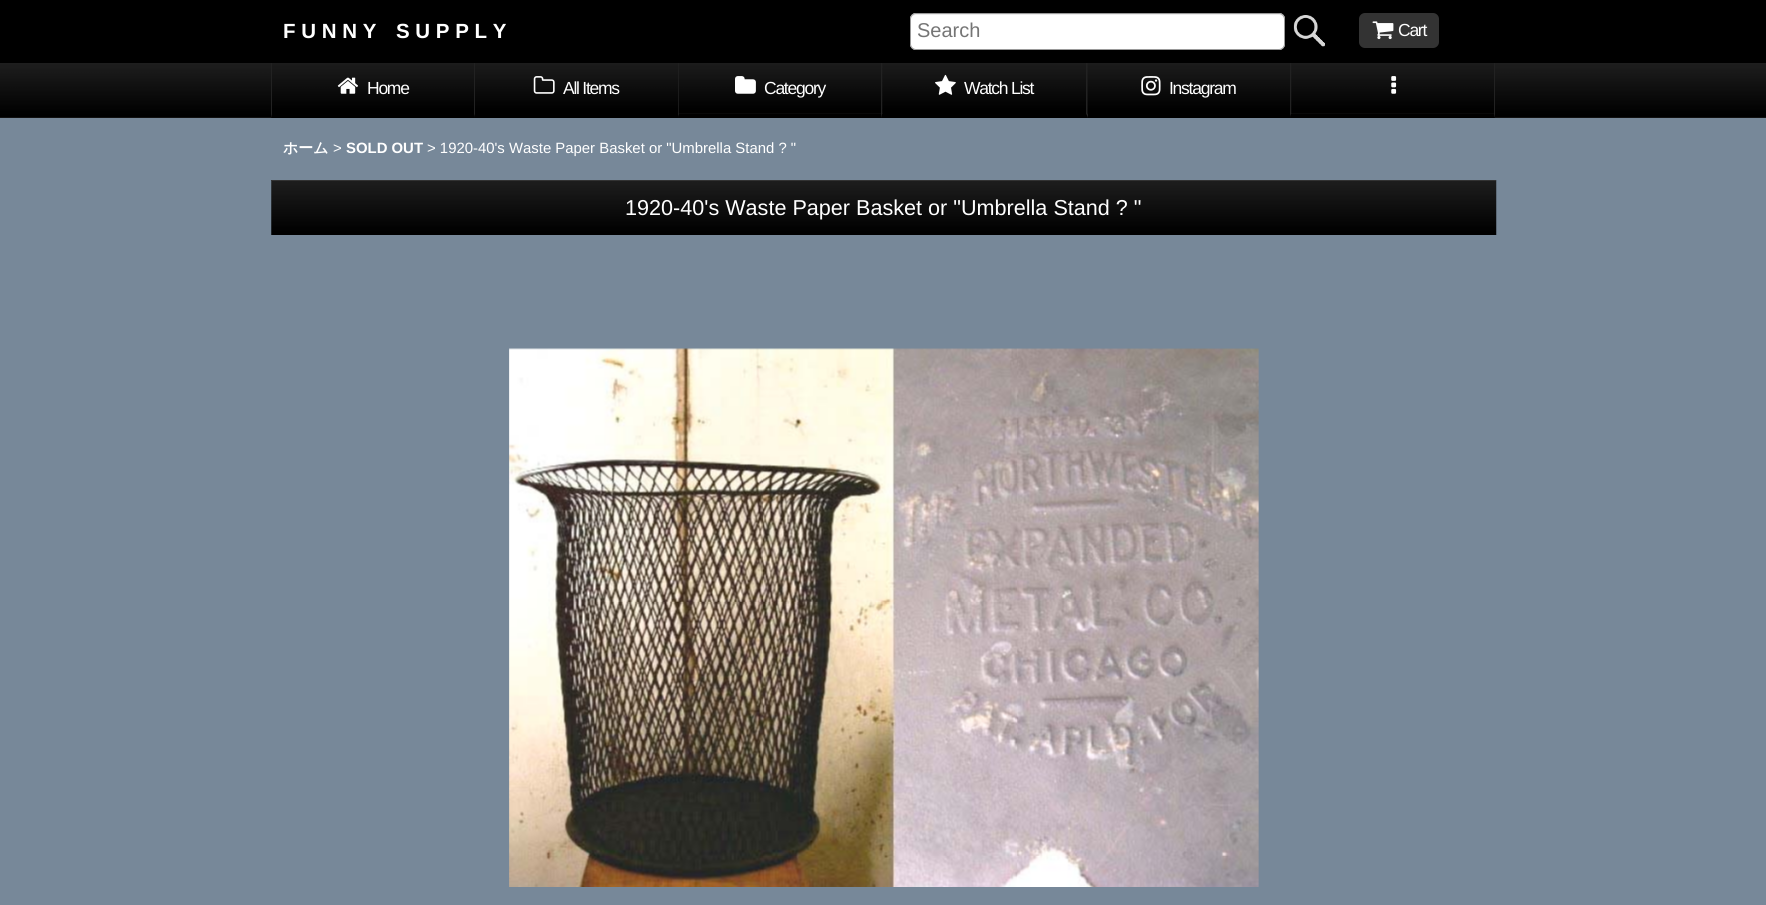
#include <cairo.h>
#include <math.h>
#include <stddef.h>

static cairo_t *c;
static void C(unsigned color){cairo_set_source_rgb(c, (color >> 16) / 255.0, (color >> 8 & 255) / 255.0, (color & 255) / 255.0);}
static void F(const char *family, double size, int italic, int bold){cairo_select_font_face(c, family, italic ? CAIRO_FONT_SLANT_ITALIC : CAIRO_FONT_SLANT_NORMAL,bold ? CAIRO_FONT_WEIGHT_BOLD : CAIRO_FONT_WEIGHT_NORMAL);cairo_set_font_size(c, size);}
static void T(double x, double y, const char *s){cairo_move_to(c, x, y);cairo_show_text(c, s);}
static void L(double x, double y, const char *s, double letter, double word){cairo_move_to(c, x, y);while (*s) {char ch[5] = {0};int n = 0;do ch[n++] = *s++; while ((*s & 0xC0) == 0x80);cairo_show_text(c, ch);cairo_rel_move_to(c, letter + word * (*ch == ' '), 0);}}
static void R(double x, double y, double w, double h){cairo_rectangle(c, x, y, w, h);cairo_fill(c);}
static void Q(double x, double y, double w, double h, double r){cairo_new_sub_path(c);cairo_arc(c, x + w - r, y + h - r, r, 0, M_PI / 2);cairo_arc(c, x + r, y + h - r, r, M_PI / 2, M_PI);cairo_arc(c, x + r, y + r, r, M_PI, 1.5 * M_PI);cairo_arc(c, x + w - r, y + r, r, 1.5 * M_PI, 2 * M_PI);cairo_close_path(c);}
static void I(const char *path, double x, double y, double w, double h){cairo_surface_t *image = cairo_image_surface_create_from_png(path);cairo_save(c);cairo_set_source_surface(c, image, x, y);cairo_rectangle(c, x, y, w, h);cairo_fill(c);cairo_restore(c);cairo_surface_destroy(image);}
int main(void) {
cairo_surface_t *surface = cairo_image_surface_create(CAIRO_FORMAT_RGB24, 1766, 905);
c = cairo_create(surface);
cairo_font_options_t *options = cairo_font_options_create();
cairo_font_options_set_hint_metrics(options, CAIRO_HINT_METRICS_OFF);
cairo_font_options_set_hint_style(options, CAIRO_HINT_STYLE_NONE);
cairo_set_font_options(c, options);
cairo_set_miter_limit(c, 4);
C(0x778899);
cairo_paint(c);
C(0x222222);
R(0,117,1766,1);
I("3.png",0,63,1766,55);
cairo_new_path(c);
cairo_move_to(c,475,62);
cairo_line_to(c,475,118);
cairo_line_to(c,474,114);
cairo_line_to(c,474,62);
cairo_close_path(c);
cairo_fill(c);
C(0x000000);
cairo_new_path(c);
cairo_move_to(c,475,118);
cairo_line_to(c,271,118);
cairo_line_to(c,272,114);
cairo_line_to(c,474,114);
cairo_close_path(c);
cairo_fill(c);
C(0x222222);
cairo_new_path(c);
cairo_move_to(c,271,118);
cairo_line_to(c,271,62);
cairo_line_to(c,272,62);
cairo_line_to(c,272,114);
cairo_close_path(c);
cairo_fill(c);
cairo_new_path(c);
cairo_move_to(c,679,62);
cairo_line_to(c,679,118);
cairo_line_to(c,678,114);
cairo_line_to(c,678,62);
cairo_close_path(c);
cairo_fill(c);
R(679,63,204,55);
I("8.png",678,63,205,51);
cairo_new_path(c);
cairo_move_to(c,882,62);
cairo_line_to(c,882,118);
cairo_line_to(c,881,114);
cairo_line_to(c,881,62);
cairo_close_path(c);
cairo_fill(c);
cairo_new_path(c);
cairo_move_to(c,1088,62);
cairo_line_to(c,1088,118);
cairo_line_to(c,1086,114);
cairo_line_to(c,1086,62);
cairo_close_path(c);
cairo_fill(c);
cairo_new_path(c);
cairo_move_to(c,1291,62);
cairo_line_to(c,1291,118);
cairo_line_to(c,1290,114);
cairo_line_to(c,1290,62);
cairo_close_path(c);
cairo_fill(c);
R(1291,63,204,55);
cairo_new_path(c);
cairo_move_to(c,1495,62);
cairo_line_to(c,1495,118);
cairo_line_to(c,1494,114);
cairo_line_to(c,1494,62);
cairo_close_path(c);
cairo_fill(c);
C(0x000000);
R(0,0,1766,63);
C(0xffffff);
Q(910,13,375,37,6);
cairo_fill(c);
C(0xececec);
cairo_new_path(c);
cairo_move_to(c,916,15);
cairo_line_to(c,1279,15);
cairo_curve_to(c,1282,15,1284,17,1284,20);
cairo_line_to(c,1284,19);
cairo_curve_to(c,1284,16,1282,14,1279,14);
cairo_line_to(c,916,14);
cairo_curve_to(c,913,14,911,16,911,19);
cairo_line_to(c,911,20);
cairo_curve_to(c,911,17,913,15,916,15);
cairo_close_path(c);
cairo_fill(c);
Q(910.5,13.5,374,36,5.5);
C(0x999999);
cairo_set_line_width(c,1);
cairo_stroke(c);
F("Liberation Sans",20,0,0);
C(0x757575);
T(917,37,"Search");
I("1.png",1293,15,32,32);
F("Liberation Sans",20.5,0,1);
C(0xffffff);
T(283,38,"F U N N Y");
T(396,38,"S U P P L Y");
C(0x333333);
Q(1359,13,80,35,6);
cairo_fill(c);
I("2.png",1372,21,22,19);
F("Liberation Sans",17.5,0,0);
C(0xffffff);
L(1398,36,"Cart",-1.25,0);
I("4.png",272,63,202,51);
I("5.png",337,77,21,17);
L(367,94,"Home",-1.25,0);
I("6.png",475,63,203,51);
C(0x000000);
cairo_new_path(c);
cairo_move_to(c,679,118);
cairo_line_to(c,475,118);
cairo_line_to(c,475,114);
cairo_line_to(c,678,114);
cairo_close_path(c);
cairo_fill(c);
I("7.png",533,76,22,18);
C(0xffffff);
L(563,94,"All Items",-1.25,0);
C(0x000000);
cairo_new_path(c);
cairo_move_to(c,882,118);
cairo_line_to(c,679,118);
cairo_line_to(c,679,114);
cairo_line_to(c,881,114);
cairo_close_path(c);
cairo_fill(c);
I("9.png",735,76,21,18);
C(0xffffff);
L(764,94,"Category",-1.25,0);
I("10.png",882,63,204,51);
C(0x000000);
cairo_new_path(c);
cairo_move_to(c,1088,118);
cairo_line_to(c,882,118);
cairo_line_to(c,882,114);
cairo_line_to(c,1086,114);
cairo_close_path(c);
cairo_fill(c);
I("11.png",935,74,21,21);
C(0xffffff);
L(964,94,"Watch List",-1.25,0);
I("12.png",1087,63,203,51);
C(0x000000);
cairo_new_path(c);
cairo_move_to(c,1291,118);
cairo_line_to(c,1088,118);
cairo_line_to(c,1088,114);
cairo_line_to(c,1290,114);
cairo_close_path(c);
cairo_fill(c);
I("13.png",1141,76,20,20);
C(0xffffff);
L(1169,94,"Instagram",-1.25,0);
I("14.png",1291,63,203,51);
C(0x000000);
cairo_new_path(c);
cairo_move_to(c,1495,118);
cairo_line_to(c,1291,118);
cairo_line_to(c,1291,114);
cairo_line_to(c,1494,114);
cairo_close_path(c);
cairo_fill(c);
I("15.png",1391,76,6,18);
F("WenQuanYi Zen Hei",14.9,0,1);
C(0xffffff);
T(283,153,"ホーム");
F("Liberation Sans",14.9,0,0);
T(333,153,">");
F("Liberation Sans",14.9,0,1);
T(346,153,"SOLD OUT");
F("Liberation Sans",14.9,0,0);
T(427,153,"> 1920-40's Waste Paper Basket or \"Umbrella Stand ? \"");
I("16.png",271,180,1226,55);
C(0x333333);
R(271,180,1225,1);
F("Liberation Sans",21.6,0,0);
C(0xffffff);
T(625,215,"1920-40's Waste Paper Basket or \"Umbrella Stand ? \"");
I("17.png",509,348,750,539);
cairo_surface_write_to_png(surface, "o.png");
cairo_font_options_destroy(options);
cairo_destroy(c);
cairo_surface_destroy(surface);
return 0;
}
